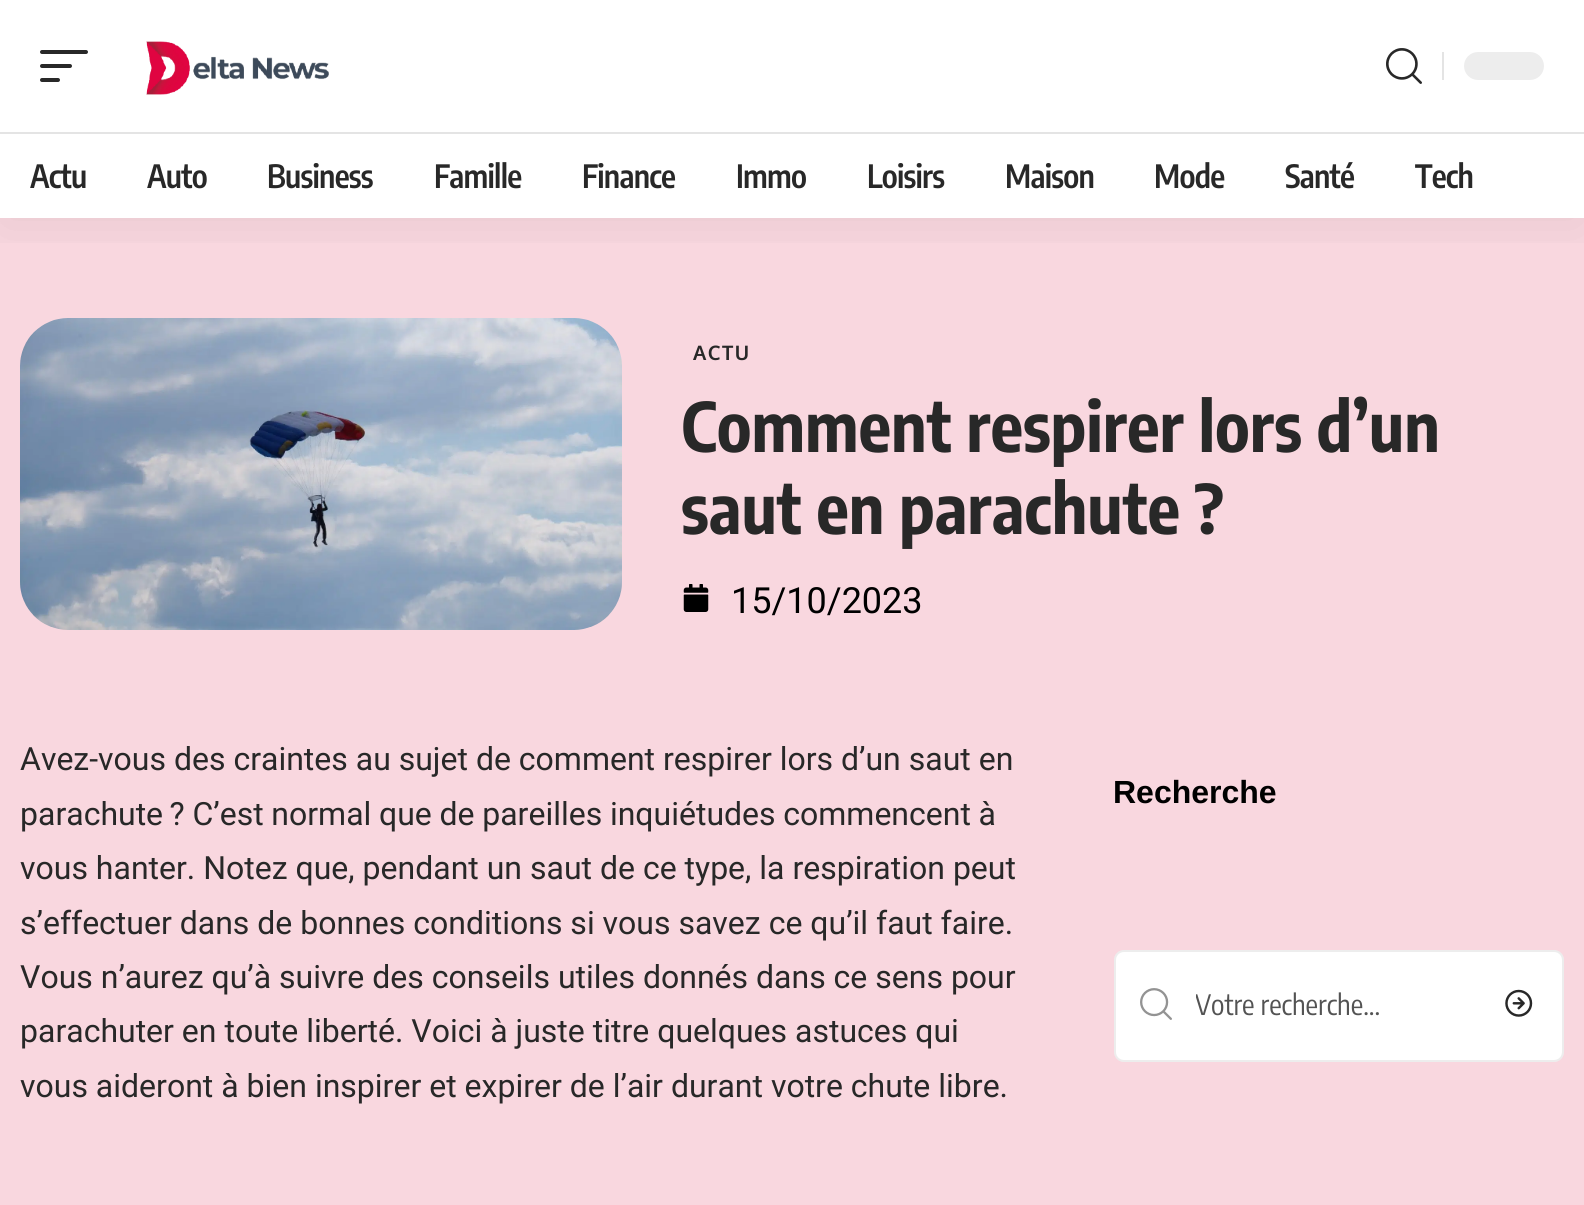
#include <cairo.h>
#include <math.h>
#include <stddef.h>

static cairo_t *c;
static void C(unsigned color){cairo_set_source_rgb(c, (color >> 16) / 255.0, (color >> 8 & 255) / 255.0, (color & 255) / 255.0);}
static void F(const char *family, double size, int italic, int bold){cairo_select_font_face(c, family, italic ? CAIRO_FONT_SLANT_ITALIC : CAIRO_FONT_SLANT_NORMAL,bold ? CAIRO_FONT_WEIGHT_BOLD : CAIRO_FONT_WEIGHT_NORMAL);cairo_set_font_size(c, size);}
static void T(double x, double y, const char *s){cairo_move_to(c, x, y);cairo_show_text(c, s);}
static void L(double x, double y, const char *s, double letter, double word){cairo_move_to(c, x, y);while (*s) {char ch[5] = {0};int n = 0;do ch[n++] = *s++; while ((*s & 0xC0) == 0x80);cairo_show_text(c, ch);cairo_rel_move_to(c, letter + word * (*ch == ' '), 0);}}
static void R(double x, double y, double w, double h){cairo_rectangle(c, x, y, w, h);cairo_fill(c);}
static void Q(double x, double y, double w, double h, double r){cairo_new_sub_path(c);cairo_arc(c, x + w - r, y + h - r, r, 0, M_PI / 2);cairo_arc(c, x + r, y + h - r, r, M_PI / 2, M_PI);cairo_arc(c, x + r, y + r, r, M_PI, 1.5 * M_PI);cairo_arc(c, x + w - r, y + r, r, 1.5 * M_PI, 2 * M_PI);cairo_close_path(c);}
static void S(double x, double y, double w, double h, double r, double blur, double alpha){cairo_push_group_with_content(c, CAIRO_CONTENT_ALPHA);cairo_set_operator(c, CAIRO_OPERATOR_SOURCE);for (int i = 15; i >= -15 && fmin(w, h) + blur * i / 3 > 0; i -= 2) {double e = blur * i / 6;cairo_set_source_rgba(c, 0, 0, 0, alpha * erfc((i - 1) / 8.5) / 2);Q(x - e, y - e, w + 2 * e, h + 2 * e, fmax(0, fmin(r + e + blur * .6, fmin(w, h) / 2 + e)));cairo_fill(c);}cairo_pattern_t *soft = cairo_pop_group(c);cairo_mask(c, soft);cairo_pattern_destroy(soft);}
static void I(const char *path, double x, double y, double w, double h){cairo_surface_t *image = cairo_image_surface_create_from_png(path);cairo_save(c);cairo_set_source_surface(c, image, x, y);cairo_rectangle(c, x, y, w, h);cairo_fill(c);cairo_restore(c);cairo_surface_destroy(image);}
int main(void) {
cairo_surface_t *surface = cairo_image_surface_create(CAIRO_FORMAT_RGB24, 1584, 1205);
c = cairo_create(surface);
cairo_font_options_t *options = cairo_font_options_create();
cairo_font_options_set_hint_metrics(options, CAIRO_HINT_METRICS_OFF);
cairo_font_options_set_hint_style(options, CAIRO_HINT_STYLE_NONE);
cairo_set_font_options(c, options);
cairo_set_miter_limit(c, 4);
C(0xffffff);
cairo_paint(c);
C(0xf9d7df);
R(0,218,1584,987);
cairo_save(c);
cairo_rectangle(c,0,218,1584,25);
cairo_clip(c);
C(0x000000);
S(0,8,1584,218,0,30,.07);
cairo_restore(c);
C(0x282828);
Q(40,50,48,4,2);
cairo_fill(c);
Q(40,64,32,4,2);
cairo_fill(c);
Q(40,78,20,4,2);
cairo_fill(c);
I("1.png",146,41,183,54);
I("2.png",1386,48,36,36);
C(0xe4e4e4);
R(1442,52,2,28);
C(0xededed);
Q(1464,52,80,28,14);
cairo_fill(c);
C(0xe4e4e4);
R(0,132,1584,2);
F("Encode Sans Condensed SemiBold",32,0,0);
C(0x282828);
L(30,188,"Actu",-.75,0);
L(147,188,"Auto",-.75,0);
L(267,188,"Business",-.75,0);
L(434,188,"Famille",-.75,0);
L(582,188,"Finance",-.75,0);
L(736,188,"Immo",-.75,0);
L(867,188,"Loisirs",-.75,0);
L(1005,188,"Maison",-.75,0);
L(1154,188,"Mode",-.75,0);
L(1285,188,"Santé",-.75,0);
L(1415,188,"Tech",-.75,0);
I("3.png",20,318,602,312);
F("Oxygen",20,0,1);
L(693,360,"ACTU",1.5,0);
F("Encode Sans Condensed",68,0,1);
T(681,452,"Comment respirer lors d’un");
T(681,534,"saut en parachute ?");
I("4.png",683,584,26,28);
F("Roboto",36,0,0);
C(0x000000);
T(731,613,"15/10/2023");
F("Roboto",32,0,0);
C(0x282828);
T(20,770,"Avez-vous des craintes au sujet de comment respirer lors d’un saut en");
L(20,825,"parachute ? C’est normal que de pareilles inquiétudes commencent à",0,-.25);
T(20,879,"vous hanter. Notez que, pendant un saut de ce type, la respiration peut");
T(20,934,"s’effectuer dans de bonnes conditions si vous savez ce qu’il faut faire.");
T(20,988,"Vous n’aurez qu’à suivre des conseils utiles donnés dans ce sens pour");
T(20,1042,"parachuter en toute liberté. Voici à juste titre quelques astuces qui");
T(20,1097,"vous aideront à bien inspirer et expirer de l’air durant votre chute libre.");
F("Liberation Sans",32,0,1);
C(0x000000);
T(1113,803,"Recherche");
C(0xffffff);
Q(1114,950,450,112,10);
cairo_fill(c);
Q(1115,951,448,110,9);
cairo_set_source_rgba(c,0.533,0.533,0.533,0.15);
cairo_stroke(c);
I("5.png",1140,988,32,32);
cairo_save(c);
Q(1196,964,278,84,6);
cairo_clip(c);
F("Encode Sans Condensed",28,0,0);
C(0x535353);
T(1195,1015,"Votre recherche...");
cairo_restore(c);
I("6.png",1505,989,28,28);
cairo_surface_write_to_png(surface, "o.png");
cairo_font_options_destroy(options);
cairo_destroy(c);
cairo_surface_destroy(surface);
return 0;
}
